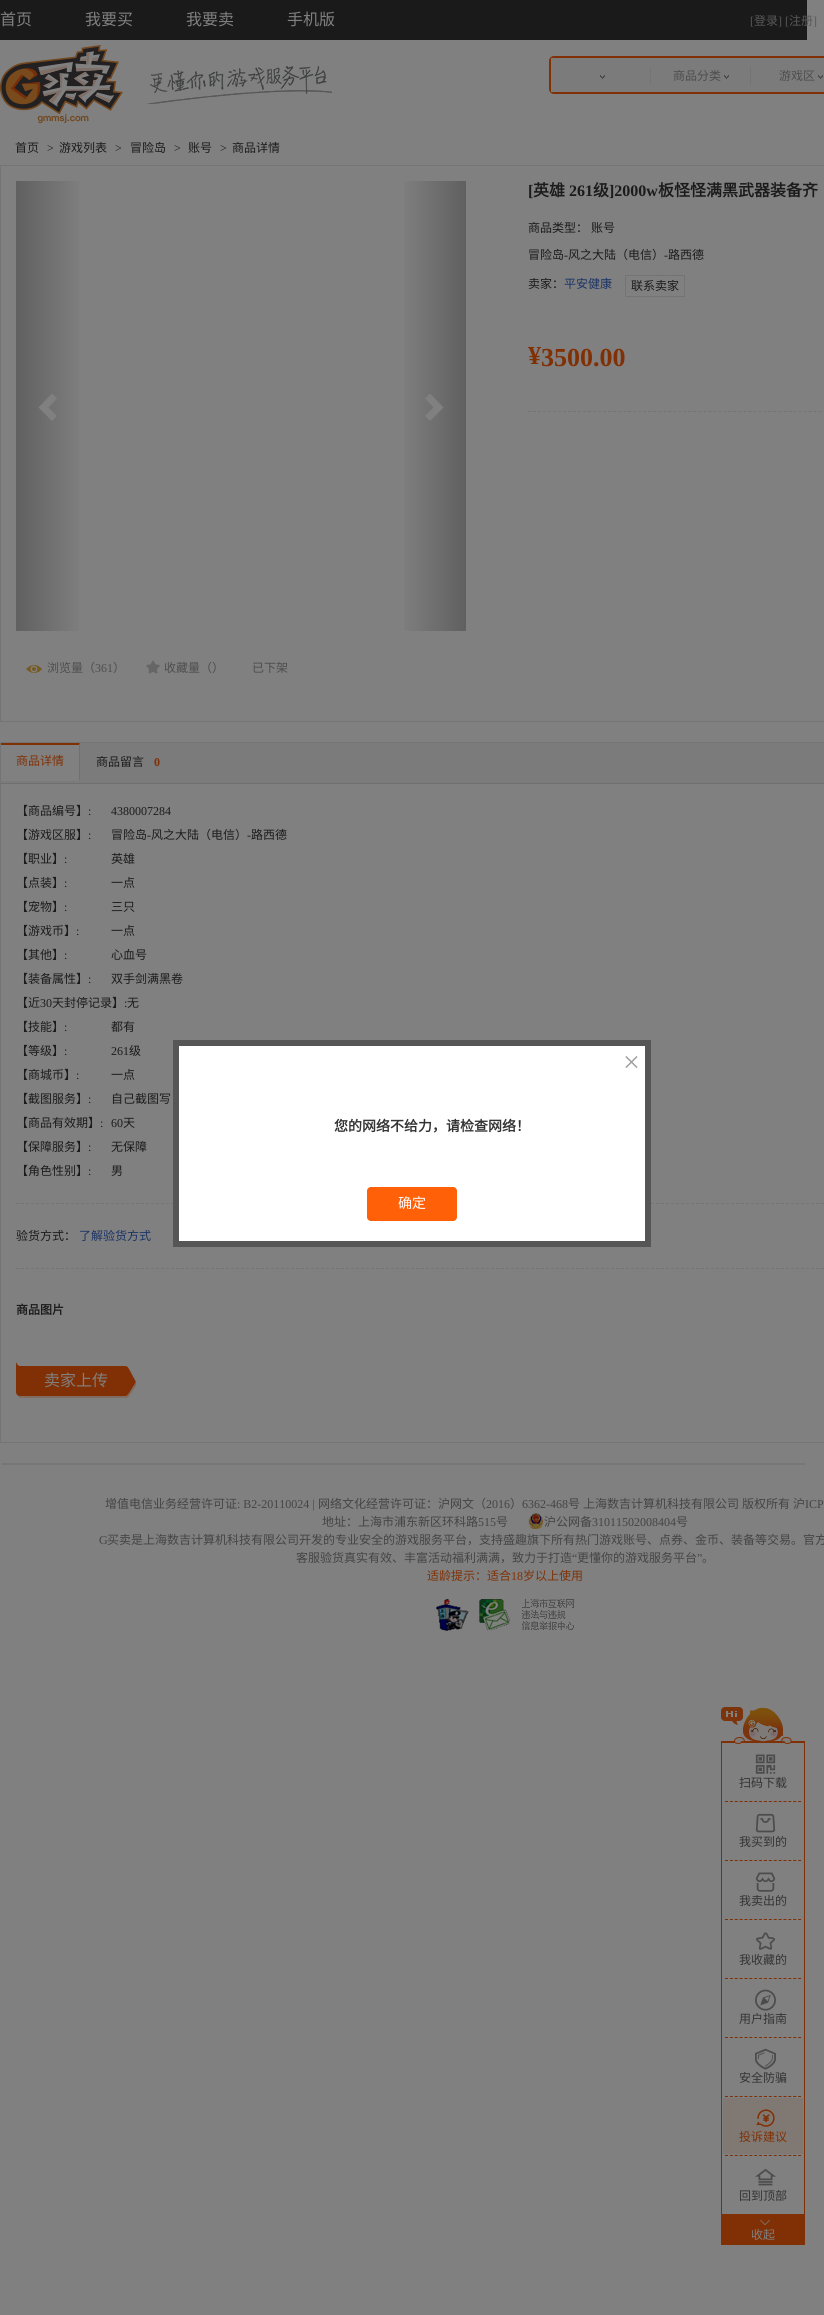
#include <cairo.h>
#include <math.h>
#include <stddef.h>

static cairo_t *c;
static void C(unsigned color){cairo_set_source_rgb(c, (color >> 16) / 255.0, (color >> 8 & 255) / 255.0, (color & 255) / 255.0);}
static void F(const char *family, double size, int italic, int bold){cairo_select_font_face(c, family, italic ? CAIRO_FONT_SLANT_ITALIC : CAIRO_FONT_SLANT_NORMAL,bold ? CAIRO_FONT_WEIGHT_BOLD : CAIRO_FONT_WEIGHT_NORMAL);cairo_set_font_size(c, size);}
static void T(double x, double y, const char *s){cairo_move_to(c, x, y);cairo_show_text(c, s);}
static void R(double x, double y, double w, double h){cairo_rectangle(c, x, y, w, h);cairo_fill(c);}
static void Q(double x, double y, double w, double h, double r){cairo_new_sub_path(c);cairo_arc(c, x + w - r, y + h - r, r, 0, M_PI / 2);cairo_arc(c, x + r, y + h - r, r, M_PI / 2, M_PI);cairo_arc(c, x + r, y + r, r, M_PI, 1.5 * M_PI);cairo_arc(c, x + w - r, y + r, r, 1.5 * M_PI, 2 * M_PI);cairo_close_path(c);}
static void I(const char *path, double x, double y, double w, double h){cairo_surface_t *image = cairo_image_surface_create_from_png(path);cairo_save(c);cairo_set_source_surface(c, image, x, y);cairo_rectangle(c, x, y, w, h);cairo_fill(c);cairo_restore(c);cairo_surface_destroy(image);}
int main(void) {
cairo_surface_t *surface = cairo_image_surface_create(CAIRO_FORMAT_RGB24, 824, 2315);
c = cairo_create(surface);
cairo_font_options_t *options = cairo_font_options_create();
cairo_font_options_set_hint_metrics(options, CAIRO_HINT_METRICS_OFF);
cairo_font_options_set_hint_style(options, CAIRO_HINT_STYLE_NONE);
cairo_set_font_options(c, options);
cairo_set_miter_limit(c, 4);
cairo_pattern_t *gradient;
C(0x808080);
cairo_paint(c);
C(0x1a1a1a);
R(0,0,807,40);
F("Noto Sans CJK SC",16,0,0);
C(0x808080);
T(0,25,"首页");
T(85,25,"我要买");
T(186,25,"我要卖");
T(287,25,"手机版");
F("Liberation Serif",12,0,0);
C(0x585858);
T(750,25,"[");
F("Noto Sans CJK SC",12,0,0);
T(754,25,"登录");
F("Liberation Serif",12,0,0);
T(778,25,"] [");
F("Noto Sans CJK SC",12,0,0);
T(789,25,"注册");
F("Liberation Serif",12,0,0);
T(813,25,"]");
I("1.png",0,45,332,79);
C(0x803004);
Q(549,56,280,38,5);
cairo_fill(c);
C(0x7b7b7b);
R(551,58,273,34);
I("2.png",600,75,5,4);
C(0x747474);
R(650,67,1,18);
F("Noto Sans CJK SC",12,0,0);
C(0x4d4d4d);
T(673,80,"商品分类");
I("2.png",724,75,5,4);
C(0x747474);
R(750,67,1,18);
C(0x4d4d4d);
T(779,80,"游戏区");
I("2.png",818,75,5,4);
C(0x1b1b1b);
T(15,152,"首页");
F("Liberation Serif",12,0,0);
T(47,152,">");
F("Noto Sans CJK SC",12,0,0);
T(59,152,"游戏列表");
F("Liberation Serif",12,0,0);
T(115,152,">");
F("Noto Sans CJK SC",12,0,0);
T(130,152,"冒险岛");
F("Liberation Serif",12,0,0);
T(174,152,">");
F("Noto Sans CJK SC",12,0,0);
T(188,152,"账号");
F("Liberation Serif",12,0,0);
T(220,152,">");
F("Noto Sans CJK SC",12,0,0);
T(232,152,"商品详情");
cairo_rectangle(c,.5,165.5,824,556);
C(0x747474);
cairo_set_line_width(c,1);
cairo_stroke(c);
gradient = cairo_pattern_create_linear(16,406,84,406);
cairo_pattern_add_color_stop_rgba(gradient,0,0.376,0.376,0.376,1);
cairo_pattern_add_color_stop_rgba(gradient,1,0.502,0.502,0.502,1);
cairo_set_source(c,gradient);
cairo_pattern_destroy(gradient);
R(16,181,63,450);
C(0x808080);
cairo_new_path(c);
cairo_move_to(c,57,398.5);
cairo_line_to(c,48.5,407.5);
cairo_line_to(c,57,416);
cairo_line_to(c,52,421);
cairo_line_to(c,38.5,407.5);
cairo_line_to(c,52,393.5);
cairo_close_path(c);
cairo_fill(c);
gradient = cairo_pattern_create_linear(399,406,466,406);
cairo_pattern_add_color_stop_rgba(gradient,0,0.502,0.502,0.502,1);
cairo_pattern_add_color_stop_rgba(gradient,1,0.376,0.376,0.376,1);
cairo_set_source(c,gradient);
cairo_pattern_destroy(gradient);
R(404,181,62,450);
C(0x808080);
cairo_new_path(c);
cairo_move_to(c,443.5,407.5);
cairo_line_to(c,430,421);
cairo_line_to(c,425,416);
cairo_line_to(c,433.5,407.5);
cairo_line_to(c,425,398.5);
cairo_line_to(c,430,393.5);
cairo_close_path(c);
cairo_fill(c);
F("Liberation Serif",16,0,1);
C(0x1b1b1b);
T(528,196,"[");
F("Noto Sans CJK SC",16,0,1);
T(533,196,"英雄");
F("Liberation Serif",16,0,1);
T(569,196,"261");
F("Noto Sans CJK SC",16,0,1);
T(593,196,"级");
F("Liberation Serif",16,0,1);
T(609,196,"]2000w");
F("Noto Sans CJK SC",16,0,1);
T(658,196,"板怪怪满黑武器装备齐");
F("Noto Sans CJK SC",12,0,0);
T(528,232,"商品类型：");
T(591,232,"账号");
T(528,259,"冒险岛");
F("Liberation Serif",12,0,0);
T(564,259,"-");
F("Noto Sans CJK SC",12,0,0);
T(568,259,"风之大陆（电信）");
F("Liberation Serif",12,0,0);
T(664,259,"-");
F("Noto Sans CJK SC",12,0,0);
T(668,259,"路西德");
T(528,288,"卖家：");
C(0x1a3366);
T(564,288,"平安健康");
cairo_rectangle(c,625.5,275.5,59,21);
C(0x747474);
cairo_stroke(c);
C(0x1b1b1b);
T(631,290,"联系卖家");
F("Liberation Serif",26,0,1);
C(0x803004);
T(528,364,"¥");
T(541,366,"3500.00");
cairo_new_path(c);
cairo_move_to(c,528,411.5);
cairo_line_to(c,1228,411.5);
C(0x747474);
cairo_set_dash(c,(double[]){3,2.01},2,0);
cairo_stroke(c);
I("3.png",26,664,16,10);
F("Noto Sans CJK SC",12,0,0);
C(0x4d4d4d);
T(47,672,"浏览量（");
F("Liberation Serif",12,0,0);
T(95,672,"361");
F("Noto Sans CJK SC",12,0,0);
T(113,672,"）");
I("4.png",146,660,14,14);
T(164,672,"收藏量（）");
T(252,672,"已下架");
cairo_rectangle(c,.5,742.5,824,700);
C(0x747474);
cairo_set_dash(c,NULL,0,0);
cairo_stroke(c);
C(0x7b7b7b);
R(1,743,823,40);
C(0x6f6f6f);
R(1,783,823,1);
C(0x808080);
R(1,743,79,38);
C(0x803004);
cairo_new_path(c);
cairo_move_to(c,1,743);
cairo_line_to(c,80,743);
cairo_line_to(c,79,745);
cairo_line_to(c,1,745);
cairo_close_path(c);
cairo_fill(c);
C(0x6f6f6f);
cairo_new_path(c);
cairo_move_to(c,80,743);
cairo_line_to(c,80,781);
cairo_line_to(c,79,780);
cairo_line_to(c,79,745);
cairo_close_path(c);
cairo_fill(c);
C(0x803004);
T(16,765,"商品详情");
C(0x1b1b1b);
T(96,766,"商品留言");
F("Liberation Serif",12,0,1);
C(0x803004);
T(154,766,"0");
cairo_new_path(c);
cairo_move_to(c,16,1203.5);
cairo_line_to(c,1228,1203.5);
C(0x747474);
cairo_set_dash(c,(double[]){3,2},2,0);
cairo_stroke(c);
F("Noto Sans CJK SC",12,0,0);
C(0x1b1b1b);
T(16,815,"【商品编号】");
F("Liberation Serif",12,0,0);
T(88,815,":");
T(111,815,"4380007284");
F("Noto Sans CJK SC",12,0,0);
T(16,839,"【游戏区服】");
F("Liberation Serif",12,0,0);
T(88,839,":");
F("Noto Sans CJK SC",12,0,0);
T(111,839,"冒险岛");
F("Liberation Serif",12,0,0);
T(147,839,"-");
F("Noto Sans CJK SC",12,0,0);
T(151,839,"风之大陆（电信）");
F("Liberation Serif",12,0,0);
T(247,839,"-");
F("Noto Sans CJK SC",12,0,0);
T(251,839,"路西德");
T(16,863,"【职业】");
F("Liberation Serif",12,0,0);
T(64,863,":");
F("Noto Sans CJK SC",12,0,0);
T(111,863,"英雄");
T(16,887,"【点装】");
F("Liberation Serif",12,0,0);
T(64,887,":");
F("Noto Sans CJK SC",12,0,0);
T(111,887,"一点");
T(16,911,"【宠物】");
F("Liberation Serif",12,0,0);
T(64,911,":");
F("Noto Sans CJK SC",12,0,0);
T(111,911,"三只");
T(16,935,"【游戏币】");
F("Liberation Serif",12,0,0);
T(76,935,":");
F("Noto Sans CJK SC",12,0,0);
T(111,935,"一点");
T(16,959,"【其他】");
F("Liberation Serif",12,0,0);
T(64,959,":");
F("Noto Sans CJK SC",12,0,0);
T(111,959,"心血号");
T(16,983,"【装备属性】");
F("Liberation Serif",12,0,0);
T(88,983,":");
F("Noto Sans CJK SC",12,0,0);
T(111,983,"双手剑满黑卷");
T(16,1007,"【近");
F("Liberation Serif",12,0,0);
T(40,1007,"30");
F("Noto Sans CJK SC",12,0,0);
T(52,1007,"天封停记录】");
F("Liberation Serif",12,0,0);
T(124,1007,":");
F("Noto Sans CJK SC",12,0,0);
T(127,1007,"无");
T(16,1031,"【技能】");
F("Liberation Serif",12,0,0);
T(64,1031,":");
F("Noto Sans CJK SC",12,0,0);
T(111,1031,"都有");
T(16,1055,"【等级】");
F("Liberation Serif",12,0,0);
T(64,1055,":");
T(111,1055,"261");
F("Noto Sans CJK SC",12,0,0);
T(129,1055,"级");
T(16,1079,"【商城币】");
F("Liberation Serif",12,0,0);
T(76,1079,":");
F("Noto Sans CJK SC",12,0,0);
T(111,1079,"一点");
T(16,1103,"【截图服务】");
F("Liberation Serif",12,0,0);
T(88,1103,":");
F("Noto Sans CJK SC",12,0,0);
T(111,1103,"自己截图写");
T(16,1127,"【商品有效期】");
F("Liberation Serif",12,0,0);
T(100,1127,":");
T(111,1127,"60");
F("Noto Sans CJK SC",12,0,0);
T(123,1127,"天");
T(16,1151,"【保障服务】");
F("Liberation Serif",12,0,0);
T(88,1151,":");
F("Noto Sans CJK SC",12,0,0);
T(111,1151,"无保障");
T(16,1175,"【角色性别】");
F("Liberation Serif",12,0,0);
T(88,1175,":");
F("Noto Sans CJK SC",12,0,0);
T(111,1175,"男");
cairo_new_path(c);
cairo_move_to(c,16,1268.5);
cairo_line_to(c,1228,1268.5);
C(0x747474);
cairo_stroke(c);
C(0x1b1b1b);
T(16,1240,"验货方式：");
C(0x1a3366);
T(79,1240,"了解验货方式");
F("Noto Sans CJK SC",12,0,1);
C(0x1b1b1b);
T(16,1314,"商品图片");
I("5.png",16,1362,120,36);
F("Noto Sans CJK SC",16,0,0);
C(0x808080);
T(44,1386,"卖家上传");
C(0xffffff);
cairo_rectangle(c,176,1043,472,201);
cairo_fill_preserve(c);
C(0x565656);
cairo_set_line_width(c,6);
cairo_set_dash(c,NULL,0,0);
cairo_stroke(c);
F("Liberation Serif",30,0,0);
C(0xa0a0a0);
T(623,1072,"×");
F("Noto Sans CJK SC",14,0,1);
C(0x333333);
T(334,1131,"您的网络不给力，请检查网络！");
C(0xff6008);
Q(367.5,1187.5,89,33,3.5);
cairo_fill_preserve(c);
cairo_set_line_width(c,1);
cairo_stroke(c);
F("Noto Sans CJK SC",14,0,0);
C(0xffffff);
T(398,1208,"确定");
C(0x747678);
R(2,1463,803,2);
F("Noto Sans CJK SC",12,0,0);
C(0x444444);
T(105,1508,"增值电信业务经营许可证");
F("Liberation Serif",12,0,0);
T(237,1508,": B2-20110024 |");
F("Noto Sans CJK SC",12,0,0);
T(318,1508,"网络文化经营许可证：沪网文（");
F("Liberation Serif",12,0,0);
T(486,1508,"2016");
F("Noto Sans CJK SC",12,0,0);
T(510,1508,"）");
F("Liberation Serif",12,0,0);
T(522,1508,"6362-468");
F("Noto Sans CJK SC",12,0,0);
T(568,1508,"号");
T(583,1508,"上海数吉计算机科技有限公司");
T(742,1508,"版权所有");
T(793,1508,"沪");
F("Liberation Serif",12,0,0);
T(805,1508,"ICP");
F("Noto Sans CJK SC",12,0,0);
T(322,1526,"地址：上海市浦东新区环科路");
F("Liberation Serif",12,0,0);
T(478,1526,"515");
F("Noto Sans CJK SC",12,0,0);
T(496,1526,"号");
I("6.png",528,1513,16,16);
T(544,1526,"沪公网备");
F("Liberation Serif",12,0,0);
T(592,1526,"31011502008404");
F("Noto Sans CJK SC",12,0,0);
T(676,1526,"号");
F("Liberation Serif",12,0,0);
T(99,1544,"G");
F("Noto Sans CJK SC",12,0,0);
T(107,1544,"买卖是上海数吉计算机科技有限公司开发的专业安全的游戏服务平台，支持盛趣旗下所有热门游戏账号、点券、金币、装备等交易。官方");
T(296,1562,"客服验货真实有效、丰富活动福利满满，致力于打造");
F("Liberation Serif",12,0,0);
T(572,1562,"“");
F("Noto Sans CJK SC",12,0,0);
T(577,1562,"更懂你的游戏服务平台");
F("Liberation Serif",12,0,0);
T(697,1562,"”");
F("Noto Sans CJK SC",12,0,0);
T(702,1562,"。");
C(0x803004);
T(427,1580,"适龄提示：适合");
F("Liberation Serif",12,0,0);
T(511,1580,"18");
F("Noto Sans CJK SC",12,0,0);
T(523,1580,"岁以上使用");
I("7.png",436,1598,33,33);
I("8.png",479,1599,95,32);
cairo_rectangle(c,721.5,1742.5,83,502);
cairo_stroke(c);
I("9.png",721,1707,84,37);
I("10.png",755,1754,21,20);
C(0x333333);
T(739,1787,"扫码下载");
cairo_new_path(c);
cairo_move_to(c,725,1801.5);
cairo_line_to(c,801,1801.5);
C(0x803004);
cairo_set_dash(c,(double[]){3,1.87},2,0);
cairo_stroke(c);
I("11.png",755,1813,21,20);
C(0x333333);
T(739,1846,"我买到的");
cairo_new_path(c);
cairo_move_to(c,725,1860.5);
cairo_line_to(c,801,1860.5);
C(0x803004);
cairo_stroke(c);
I("12.png",755,1872,21,20);
C(0x333333);
T(739,1905,"我卖出的");
cairo_new_path(c);
cairo_move_to(c,725,1919.5);
cairo_line_to(c,801,1919.5);
C(0x803004);
cairo_stroke(c);
I("13.png",756,1932,19,18);
C(0x333333);
T(739,1964,"我收藏的");
cairo_new_path(c);
cairo_move_to(c,725,1978.5);
cairo_line_to(c,801,1978.5);
C(0x803004);
cairo_stroke(c);
I("14.png",755,1989,21,22);
C(0x333333);
T(739,2023,"用户指南");
cairo_new_path(c);
cairo_move_to(c,725,2037.5);
cairo_line_to(c,801,2037.5);
C(0x803004);
cairo_stroke(c);
I("15.png",755,2048,21,22);
C(0x333333);
T(739,2082,"安全防骗");
C(0x807873);
R(723,2098,80,56);
cairo_new_path(c);
cairo_move_to(c,725,2096.5);
cairo_line_to(c,801,2096.5);
C(0x803004);
cairo_stroke(c);
I("16.png",756,2109,19,18);
T(739,2141,"投诉建议");
cairo_new_path(c);
cairo_move_to(c,725,2155.5);
cairo_line_to(c,801,2155.5);
cairo_stroke(c);
I("17.png",755,2168,21,18);
C(0x333333);
T(739,2200,"回到顶部");
C(0x803004);
R(722,2214,82,30);
I("18.png",760,2219,10,6);
C(0x808080);
T(751,2239,"收起");
cairo_surface_write_to_png(surface, "o.png");
cairo_font_options_destroy(options);
cairo_destroy(c);
cairo_surface_destroy(surface);
return 0;
}
